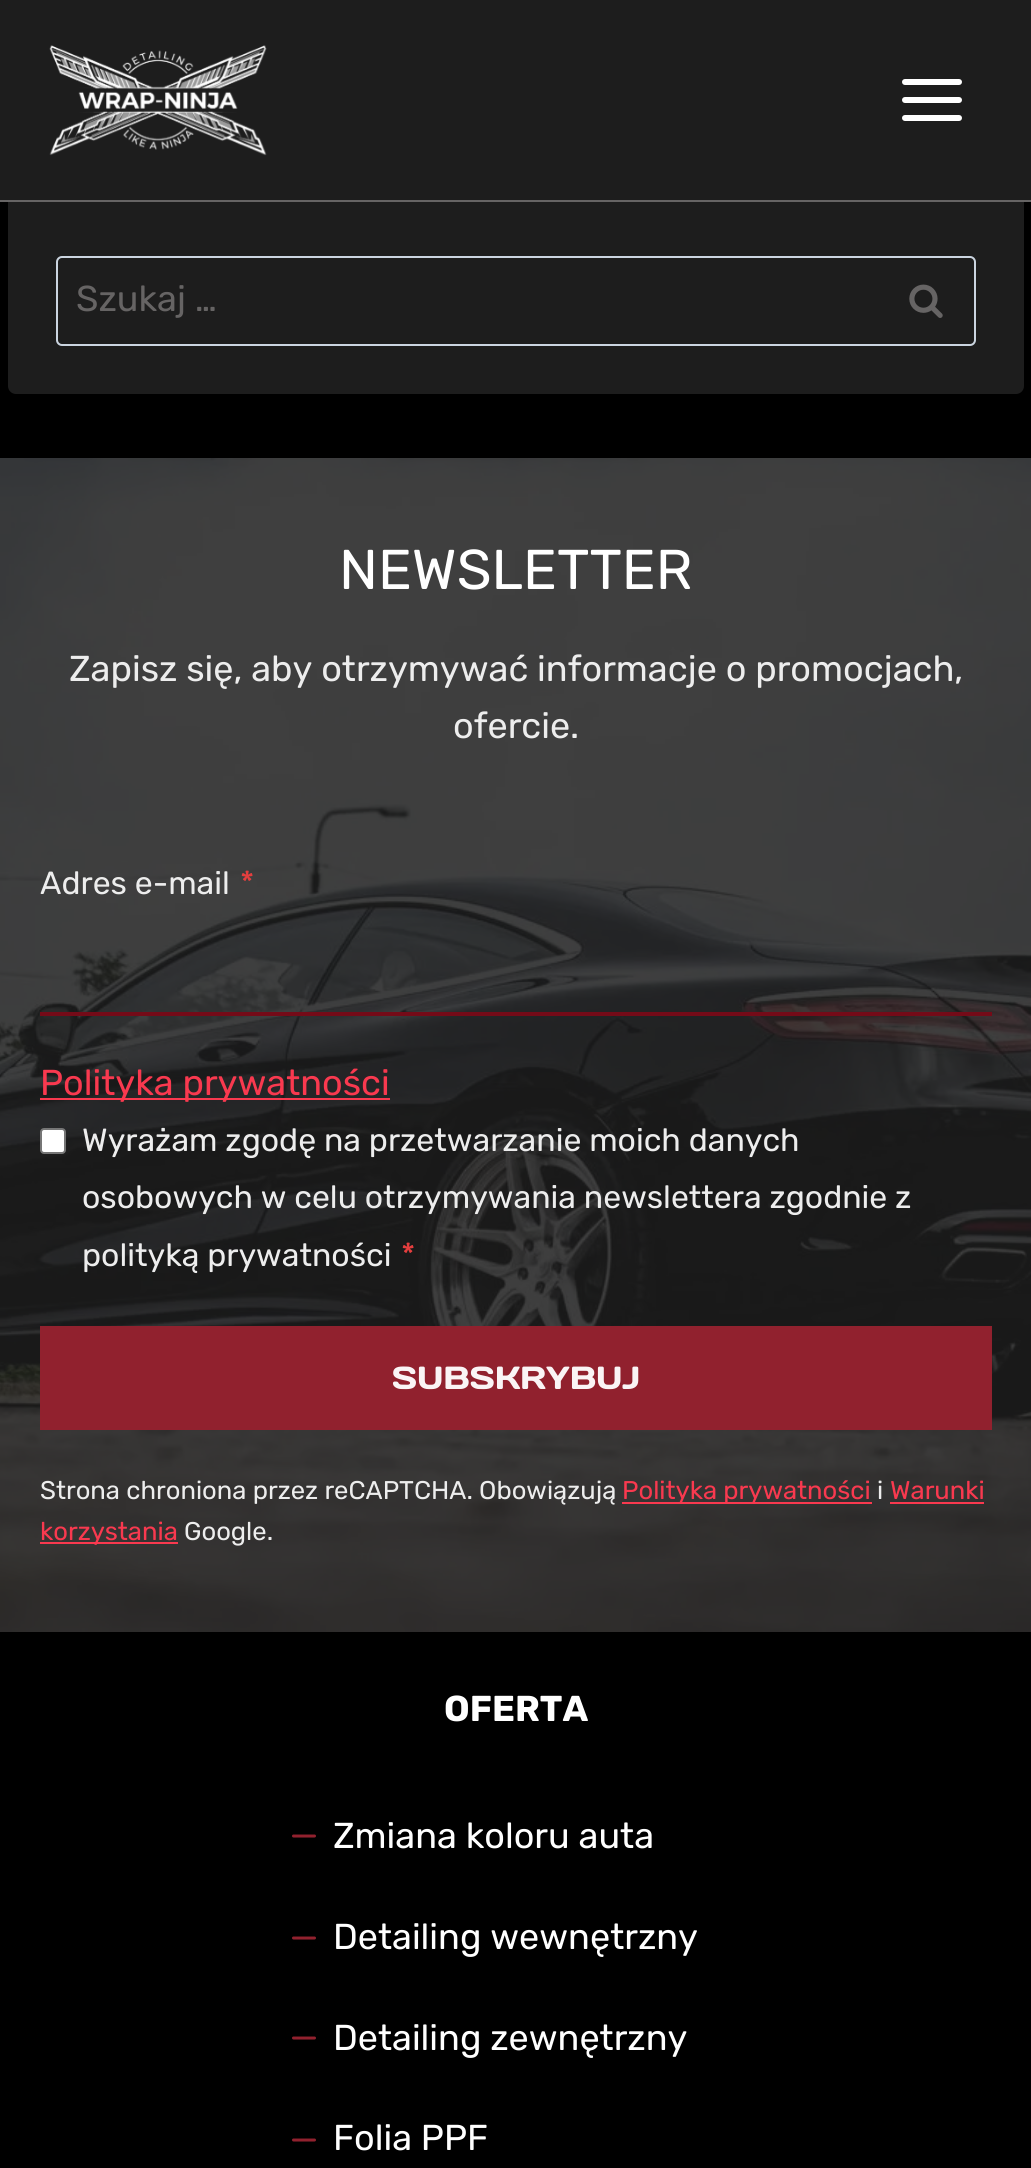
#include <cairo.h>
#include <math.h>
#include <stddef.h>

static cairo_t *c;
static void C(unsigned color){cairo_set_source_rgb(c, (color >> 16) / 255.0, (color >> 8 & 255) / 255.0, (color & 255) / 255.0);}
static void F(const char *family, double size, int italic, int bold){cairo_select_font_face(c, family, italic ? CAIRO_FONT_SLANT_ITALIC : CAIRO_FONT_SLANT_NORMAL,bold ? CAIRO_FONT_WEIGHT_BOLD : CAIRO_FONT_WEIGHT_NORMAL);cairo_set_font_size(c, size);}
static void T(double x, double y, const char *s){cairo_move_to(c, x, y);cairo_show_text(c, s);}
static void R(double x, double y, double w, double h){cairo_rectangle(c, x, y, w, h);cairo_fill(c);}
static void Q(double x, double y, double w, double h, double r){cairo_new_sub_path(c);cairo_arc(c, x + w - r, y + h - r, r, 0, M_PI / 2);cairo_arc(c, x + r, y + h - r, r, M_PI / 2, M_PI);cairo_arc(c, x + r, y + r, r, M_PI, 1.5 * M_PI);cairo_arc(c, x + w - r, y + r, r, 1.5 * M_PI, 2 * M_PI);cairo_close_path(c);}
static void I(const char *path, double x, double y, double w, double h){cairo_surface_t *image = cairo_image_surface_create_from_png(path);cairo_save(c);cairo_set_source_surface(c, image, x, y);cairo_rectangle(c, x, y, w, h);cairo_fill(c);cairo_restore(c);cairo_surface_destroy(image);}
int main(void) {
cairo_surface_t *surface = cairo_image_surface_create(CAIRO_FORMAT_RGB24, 1031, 2168);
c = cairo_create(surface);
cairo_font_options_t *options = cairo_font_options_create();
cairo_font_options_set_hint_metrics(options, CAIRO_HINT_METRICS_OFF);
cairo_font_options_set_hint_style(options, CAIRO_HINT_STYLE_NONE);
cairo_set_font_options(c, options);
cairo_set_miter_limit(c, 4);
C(0x000000);
cairo_paint(c);
C(0x1d1d1d);
Q(8,-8,1016,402,8);
cairo_fill(c);
R(0,0,1031,200);
C(0x666464);
R(0,200,1031,2);
I("1.png",49,45,218,111);
I("2.png",902,79,60,42);
Q(57,257,918,88,5);
C(0xcbd5e0);
cairo_stroke(c);
F("Rubik",36,0,0);
C(0x666464);
T(76,311,"Szukaj …");
I("3.png",909,284,34,34);
I("4.png",0,458,1031,1174);
F("Rubik",56,0,0);
C(0xffffff);
T(339,589,"NEWSLETTER");
F("Rubik",36,0,0);
C(0xededed);
T(69,681,"Zapisz się, aby otrzymywać informacje o promocjach,");
T(453,738,"ofercie.");
F("Rubik",32,0,0);
T(40,894,"Adres e-mail");
C(0xe53e3e);
T(240,894,"*");
C(0x740b18);
R(40,1012,952,4);
C(0xf9394f);
R(40,1098,350,2);
F("Rubik",36,0,0);
T(40,1095,"Polityka prywatności");
C(0xffffff);
Q(41,1129,24,24,3);
cairo_fill_preserve(c);
C(0x767676);
cairo_stroke(c);
F("Rubik",32,0,0);
C(0xededed);
T(82,1151,"Wyrażam zgodę na przetwarzanie moich danych");
T(82,1208,"osobowych w celu otrzymywania newslettera zgodnie z");
T(82,1266,"polityką prywatności");
C(0xe53e3e);
T(401,1266,"*");
C(0x91212e);
R(40,1326,952,104);
F("Days One",32,0,0);
C(0xfaf4f5);
T(392,1389,"SUBSKRYBUJ");
F("Rubik",25.6,0,0);
C(0xededed);
T(40,1499,"Strona chroniona przez reCAPTCHA. Obowiązują");
C(0xf9394f);
R(622,1502,250,2);
T(622,1499,"Polityka prywatności");
C(0xededed);
T(877,1499,"i");
C(0xf9394f);
T(890,1499,"Warunki");
R(890,1502,94,2);
R(40,1542,138,2);
T(40,1540,"korzystania");
C(0xededed);
T(184,1540,"Google.");
F("Rubik",36,0,1);
C(0xffffff);
T(444,1721,"OFERTA");
cairo_new_path(c);
cairo_move_to(c,293.5,1836);
cairo_line_to(c,314.5,1836);
C(0x91212e);
cairo_set_line_width(c,3);
cairo_set_line_cap(c,CAIRO_LINE_CAP_ROUND);
cairo_set_line_join(c,CAIRO_LINE_JOIN_ROUND);
cairo_stroke(c);
F("Rubik",36,0,0);
C(0xffffff);
T(333,1848,"Zmiana koloru auta");
cairo_new_path(c);
cairo_move_to(c,293.5,1938);
cairo_line_to(c,314.5,1938);
C(0x91212e);
cairo_stroke(c);
C(0xffffff);
T(333,1949,"Detailing wewnętrzny");
cairo_new_path(c);
cairo_move_to(c,293.5,2038);
cairo_line_to(c,314.5,2038);
C(0x91212e);
cairo_stroke(c);
C(0xffffff);
T(333,2050,"Detailing zewnętrzny");
cairo_new_path(c);
cairo_move_to(c,293.5,2140);
cairo_line_to(c,314.5,2140);
C(0x91212e);
cairo_stroke(c);
C(0xffffff);
T(333,2150,"Folia PPF");
cairo_surface_write_to_png(surface, "o.png");
cairo_font_options_destroy(options);
cairo_destroy(c);
cairo_surface_destroy(surface);
return 0;
}
